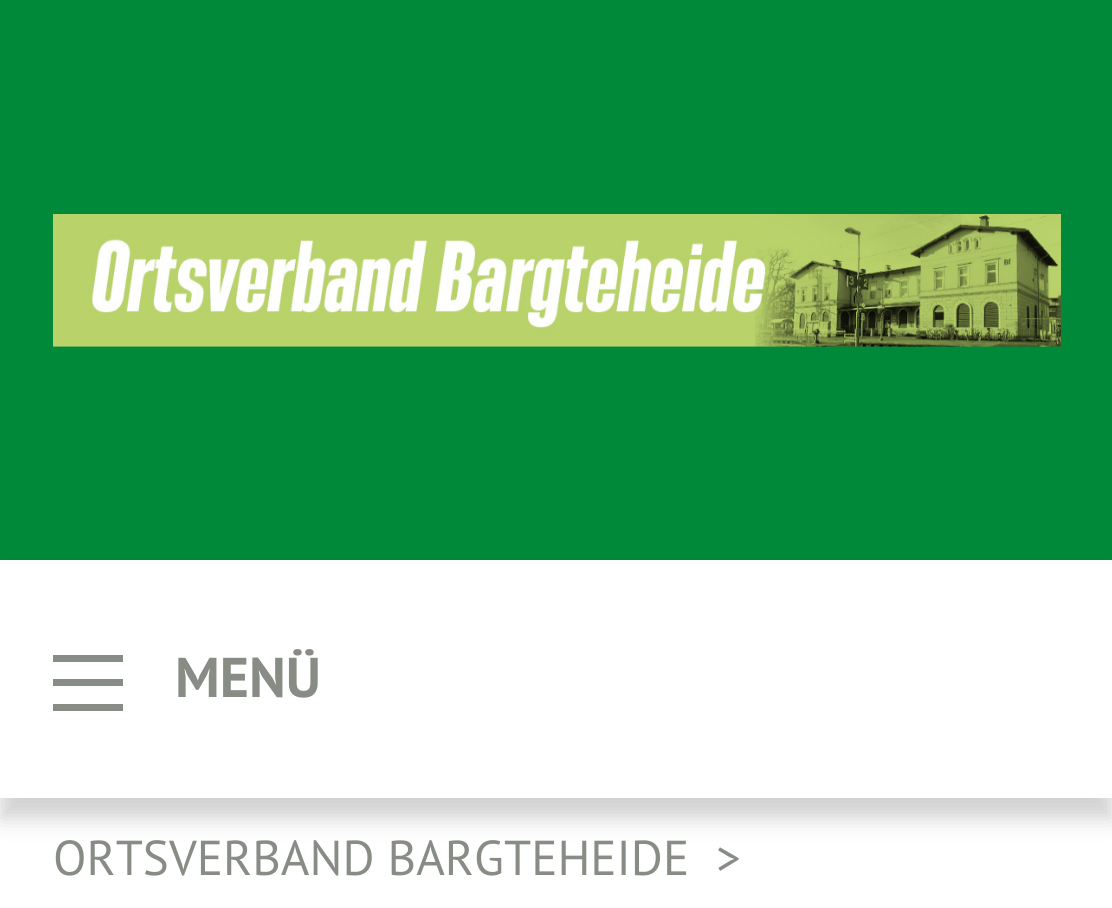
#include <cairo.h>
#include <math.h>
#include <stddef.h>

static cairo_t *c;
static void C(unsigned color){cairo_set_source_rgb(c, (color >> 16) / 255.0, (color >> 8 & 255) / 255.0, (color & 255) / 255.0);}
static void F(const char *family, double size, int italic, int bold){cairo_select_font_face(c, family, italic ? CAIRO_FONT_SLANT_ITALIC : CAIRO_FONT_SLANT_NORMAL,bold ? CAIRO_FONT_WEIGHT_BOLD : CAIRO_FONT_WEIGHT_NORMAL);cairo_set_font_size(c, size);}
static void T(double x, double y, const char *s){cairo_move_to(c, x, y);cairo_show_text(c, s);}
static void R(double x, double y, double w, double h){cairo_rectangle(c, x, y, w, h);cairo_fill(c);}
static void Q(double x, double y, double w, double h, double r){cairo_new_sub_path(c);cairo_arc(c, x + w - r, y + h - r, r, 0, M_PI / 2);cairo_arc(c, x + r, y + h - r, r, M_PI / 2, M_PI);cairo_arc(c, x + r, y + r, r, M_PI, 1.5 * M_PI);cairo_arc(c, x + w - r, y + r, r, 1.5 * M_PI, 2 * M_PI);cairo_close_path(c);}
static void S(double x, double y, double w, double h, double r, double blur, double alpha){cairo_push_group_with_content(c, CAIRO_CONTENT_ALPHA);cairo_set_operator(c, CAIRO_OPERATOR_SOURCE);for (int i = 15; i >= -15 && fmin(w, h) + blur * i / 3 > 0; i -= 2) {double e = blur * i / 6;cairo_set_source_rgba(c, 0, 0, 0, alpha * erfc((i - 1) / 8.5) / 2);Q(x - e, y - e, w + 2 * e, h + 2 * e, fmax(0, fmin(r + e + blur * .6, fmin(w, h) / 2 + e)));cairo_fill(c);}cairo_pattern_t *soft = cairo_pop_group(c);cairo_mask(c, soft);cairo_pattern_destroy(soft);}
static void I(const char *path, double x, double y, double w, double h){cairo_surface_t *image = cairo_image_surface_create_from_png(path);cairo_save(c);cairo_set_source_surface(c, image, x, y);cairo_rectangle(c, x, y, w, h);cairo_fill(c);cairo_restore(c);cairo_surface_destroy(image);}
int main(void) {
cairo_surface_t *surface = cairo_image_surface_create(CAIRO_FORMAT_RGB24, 1112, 908);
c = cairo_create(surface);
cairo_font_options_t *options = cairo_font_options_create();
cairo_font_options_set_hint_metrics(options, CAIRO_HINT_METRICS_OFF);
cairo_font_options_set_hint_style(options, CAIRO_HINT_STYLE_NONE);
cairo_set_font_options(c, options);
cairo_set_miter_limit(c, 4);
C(0xffffff);
cairo_paint(c);
C(0x008939);
R(0,0,1112,560);
I("1.png",53,214,1008,133);
C(0x201d1b);
S(0,581,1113,238,0,10.5,.2);
C(0xffffff);
R(0,564,1112,234);
C(0x878c85);
R(53,704,70,7);
R(53,679,70,7);
R(53,655,70,7);
F("PT Sans",56,0,1);
T(175,697,"MENÜ");
F("PT Sans",49,0,0);
T(53,875,"ORTSVERBAND BARGTEHEIDE");
T(716,875,">");
cairo_surface_write_to_png(surface, "o.png");
cairo_font_options_destroy(options);
cairo_destroy(c);
cairo_surface_destroy(surface);
return 0;
}
